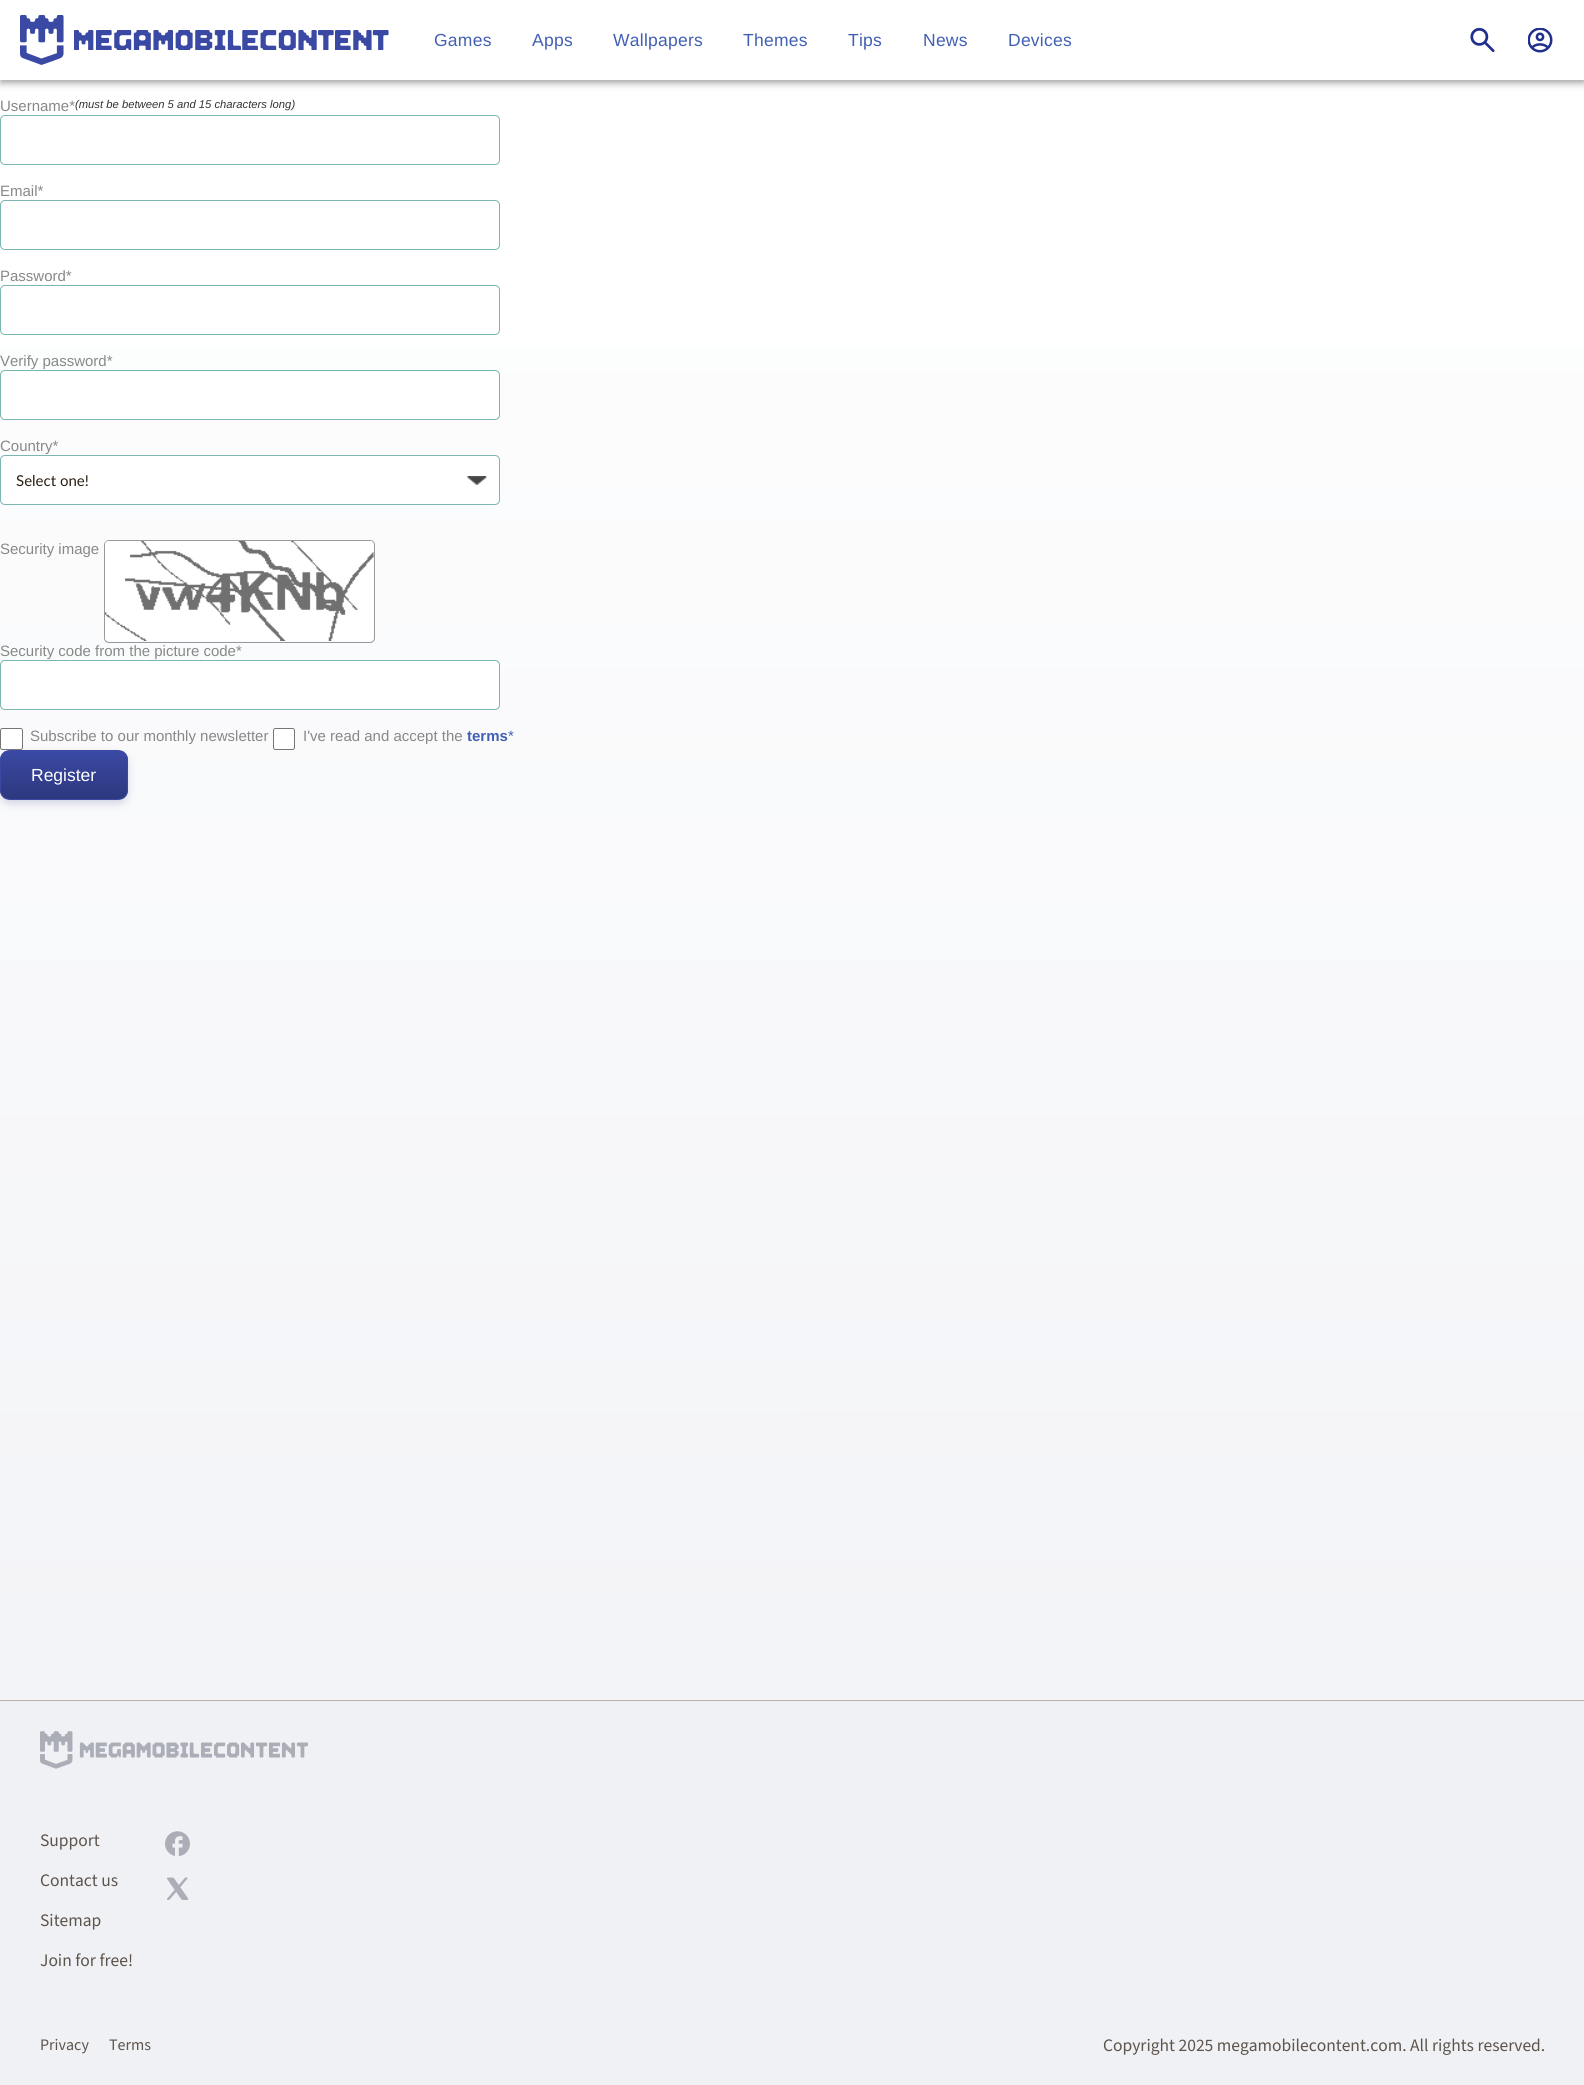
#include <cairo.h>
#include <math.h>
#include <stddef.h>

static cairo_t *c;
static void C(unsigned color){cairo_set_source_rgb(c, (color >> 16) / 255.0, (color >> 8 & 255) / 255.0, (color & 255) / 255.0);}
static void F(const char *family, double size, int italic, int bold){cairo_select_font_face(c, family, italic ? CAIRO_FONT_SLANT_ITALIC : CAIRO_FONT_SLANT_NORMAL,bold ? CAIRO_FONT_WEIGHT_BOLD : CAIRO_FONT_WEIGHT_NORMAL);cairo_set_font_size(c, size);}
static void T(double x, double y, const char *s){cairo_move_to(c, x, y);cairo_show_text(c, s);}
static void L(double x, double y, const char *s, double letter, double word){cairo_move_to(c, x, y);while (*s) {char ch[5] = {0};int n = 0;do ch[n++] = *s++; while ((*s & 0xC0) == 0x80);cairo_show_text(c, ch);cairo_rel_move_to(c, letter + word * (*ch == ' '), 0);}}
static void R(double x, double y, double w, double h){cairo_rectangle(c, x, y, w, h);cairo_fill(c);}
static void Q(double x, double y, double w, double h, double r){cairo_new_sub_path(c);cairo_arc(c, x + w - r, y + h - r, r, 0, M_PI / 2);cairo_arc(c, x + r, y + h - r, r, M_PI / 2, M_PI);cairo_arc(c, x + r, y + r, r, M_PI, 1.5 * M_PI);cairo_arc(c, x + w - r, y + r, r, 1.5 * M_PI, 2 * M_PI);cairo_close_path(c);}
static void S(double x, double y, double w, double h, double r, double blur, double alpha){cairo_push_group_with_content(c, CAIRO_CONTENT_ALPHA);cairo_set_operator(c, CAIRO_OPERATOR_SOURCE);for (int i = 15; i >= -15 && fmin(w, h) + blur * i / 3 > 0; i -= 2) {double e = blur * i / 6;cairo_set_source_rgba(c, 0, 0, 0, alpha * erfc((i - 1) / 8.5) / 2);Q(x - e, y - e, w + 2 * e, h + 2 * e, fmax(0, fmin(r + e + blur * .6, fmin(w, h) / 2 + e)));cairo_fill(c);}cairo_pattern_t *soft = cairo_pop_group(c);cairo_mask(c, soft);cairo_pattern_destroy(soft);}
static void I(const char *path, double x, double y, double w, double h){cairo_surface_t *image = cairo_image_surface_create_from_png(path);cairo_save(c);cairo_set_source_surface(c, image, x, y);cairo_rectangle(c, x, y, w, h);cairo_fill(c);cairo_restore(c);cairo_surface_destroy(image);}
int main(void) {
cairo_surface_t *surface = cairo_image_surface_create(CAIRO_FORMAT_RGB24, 1584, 2085);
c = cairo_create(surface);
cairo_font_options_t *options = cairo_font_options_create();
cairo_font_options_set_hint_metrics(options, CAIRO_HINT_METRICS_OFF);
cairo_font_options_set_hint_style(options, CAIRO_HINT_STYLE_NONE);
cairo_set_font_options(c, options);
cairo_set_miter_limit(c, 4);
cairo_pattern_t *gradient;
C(0xffffff);
cairo_paint(c);
gradient = cairo_pattern_create_linear(792,0,793,2085);
cairo_pattern_add_color_stop_rgba(gradient,0,1,1,1,1);
cairo_pattern_add_color_stop_rgba(gradient,1,0.941,0.945,0.961,1);
cairo_set_source(c,gradient);
cairo_pattern_destroy(gradient);
R(0,347,1584,1353);
C(0x000000);
S(1,4,1583,77,0,2.5,.2);
S(0,1,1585,80,0,6,.12);
S(0,5,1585,80,0,3,.14);
C(0xffffff);
R(0,0,1584,80);
I("1.png",20,15,44,50);
I("2.png",74,30,315,20);
F("Liberation Sans",17.5,0,0);
C(0x4260b3);
L(434,46,"Games",.25,0);
L(532,46,"Apps",.25,0);
L(613,46,"Wallpapers",.25,0);
L(743,46,"Themes",.25,0);
L(848,46,"Tips",.25,0);
L(923,46,"News",.25,0);
L(1008,46,"Devices",.25,0);
I("3.png",1470,27,25,26);
I("4.png",1528,28,25,25);
F("Liberation Sans",15,0,0);
C(0x888888);
T(0,111,"Username*");
F("Liberation Sans",11.25,1,0);
C(0x333333);
T(75,108,"(must be between 5 and 15 characters long)");
Q(.5,115.5,499,49,4.5);
C(0x7ab7b0);
cairo_set_line_width(c,1);
cairo_stroke(c);
F("Liberation Sans",15,0,0);
C(0x888888);
T(0,196,"Email*");
Q(.5,200.5,499,49,4.5);
C(0x7ab7b0);
cairo_stroke(c);
C(0x888888);
T(0,281,"Password*");
Q(.5,285.5,499,49,4.5);
C(0x7ab7b0);
cairo_stroke(c);
C(0x888888);
T(0,366,"Verify password*");
C(0xffffff);
Q(.5,370.5,499,49,4.5);
cairo_fill_preserve(c);
C(0x7ab7b0);
cairo_stroke(c);
C(0x888888);
T(0,451,"Country*");
C(0xffffff);
Q(0,455,500,50,5);
cairo_fill(c);
I("5.png",467,476,20,9);
Q(.5,455.5,499,49,4.5);
C(0x7ab7b0);
cairo_stroke(c);
F("Lato",15,0,0);
C(0x291e14);
T(16,486,"Select one!");
Q(104.5,540.5,270,102,4.5);
C(0x999999);
cairo_stroke(c);
F("Liberation Sans",15,0,0);
C(0x888888);
T(0,554,"Security image");
I("6.png",105,541,269,100);
T(0,656,"Security code from the picture code*");
C(0xffffff);
Q(.5,660.5,499,49,4.5);
cairo_fill_preserve(c);
C(0x7ab7b0);
cairo_stroke(c);
C(0xd3d6e6);
S(0,754,128,50,10,4,1);
C(0xffffff);
Q(.5,728.5,22,21,2);
cairo_fill_preserve(c);
C(0x767676);
cairo_stroke(c);
C(0x888888);
T(30,741,"Subscribe to our monthly newsletter");
C(0xffffff);
Q(273.5,728.5,21,21,2);
cairo_fill_preserve(c);
C(0x767676);
cairo_stroke(c);
C(0x888888);
T(303,741,"I've read and accept the");
F("Liberation Sans",15,0,1);
C(0x4260b3);
T(467,741,"terms");
F("Liberation Sans",15,0,0);
T(508,741,"*");
cairo_save(c);
Q(0,750,128,50,10);
cairo_clip(c);
gradient = cairo_pattern_create_linear(64,751,64,799);
cairo_pattern_add_color_stop_rgba(gradient,0,0.227,0.286,0.643,1);
cairo_pattern_add_color_stop_rgba(gradient,1,0.176,0.22,0.494,1);
cairo_set_source(c,gradient);
cairo_pattern_destroy(gradient);
R(0,751,128,48);
cairo_restore(c);
Q(.5,750.5,127,49,9.5);
C(0x3a49a4);
cairo_stroke(c);
F("Liberation Sans",17.5,0,0);
C(0xffffff);
T(31,781,"Register");
C(0xf0f1f5);
R(0,1701,1584,384);
C(0xb7b0aa);
R(0,1700,1584,1);
I("7.png",40,1731,268,38);
F("Source Sans 3",17.5,0,0);
C(0x5d544c);
T(40,1846,"Support");
T(40,1886,"Contact us");
T(40,1926,"Sitemap");
T(40,1966,"Join for free!");
I("8.png",165,1831,25,25);
I("9.png",167,1877,22,23);
F("Source Sans 3",16,0,0);
T(40,2050,"Privacy");
T(109,2050,"Terms");
F("Source Sans 3",17.5,0,0);
T(1103,2051,"Copyright 2025 megamobilecontent.com. All rights reserved.");
cairo_surface_write_to_png(surface, "o.png");
cairo_font_options_destroy(options);
cairo_destroy(c);
cairo_surface_destroy(surface);
return 0;
}
